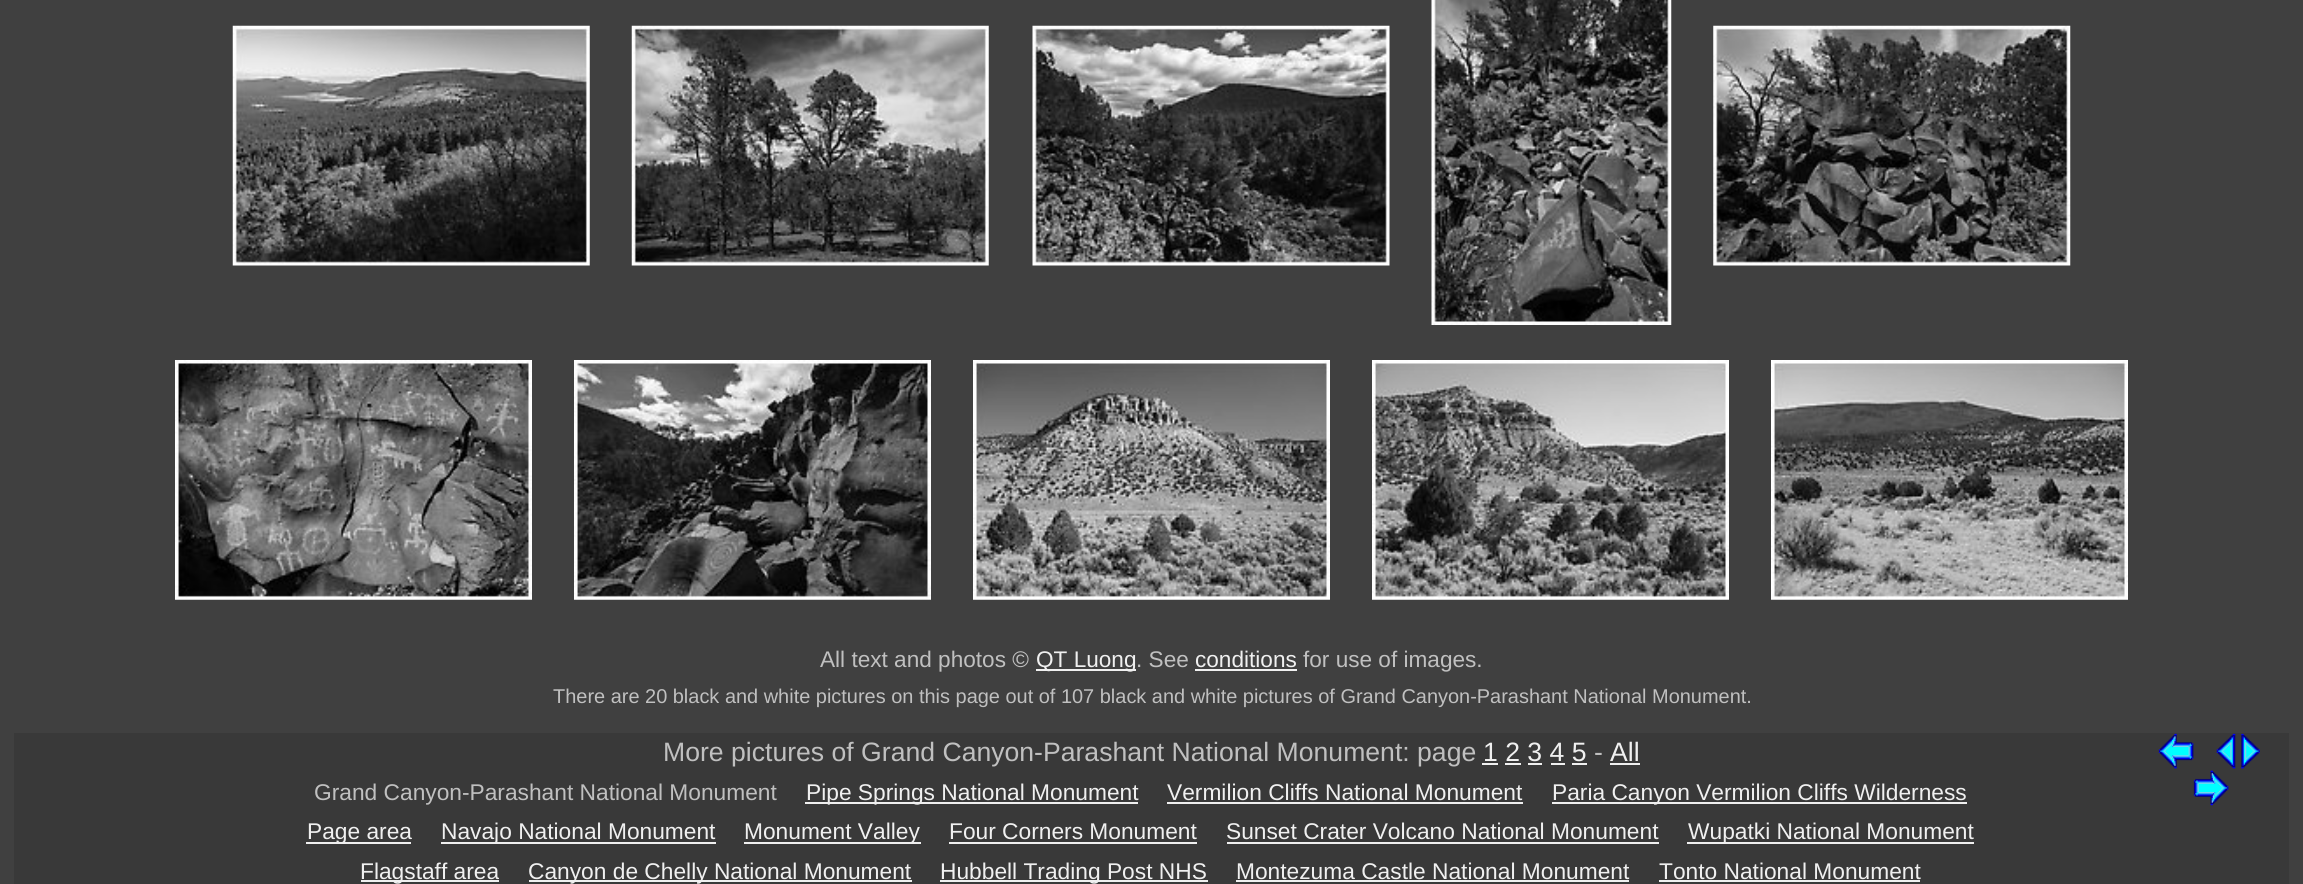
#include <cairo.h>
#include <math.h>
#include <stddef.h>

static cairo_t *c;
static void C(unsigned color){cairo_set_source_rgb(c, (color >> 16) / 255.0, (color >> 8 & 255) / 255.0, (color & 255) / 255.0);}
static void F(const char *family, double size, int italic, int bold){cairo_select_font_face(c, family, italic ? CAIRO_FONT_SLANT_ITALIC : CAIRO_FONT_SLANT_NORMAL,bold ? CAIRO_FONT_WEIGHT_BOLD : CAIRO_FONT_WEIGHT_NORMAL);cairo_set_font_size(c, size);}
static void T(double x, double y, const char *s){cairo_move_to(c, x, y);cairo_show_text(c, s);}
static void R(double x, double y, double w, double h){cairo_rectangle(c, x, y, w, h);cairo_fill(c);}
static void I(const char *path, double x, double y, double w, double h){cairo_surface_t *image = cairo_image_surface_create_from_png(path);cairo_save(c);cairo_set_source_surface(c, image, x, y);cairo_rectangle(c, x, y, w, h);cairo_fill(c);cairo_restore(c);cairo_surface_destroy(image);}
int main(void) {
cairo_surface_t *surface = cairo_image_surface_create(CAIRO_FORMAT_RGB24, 2303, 884);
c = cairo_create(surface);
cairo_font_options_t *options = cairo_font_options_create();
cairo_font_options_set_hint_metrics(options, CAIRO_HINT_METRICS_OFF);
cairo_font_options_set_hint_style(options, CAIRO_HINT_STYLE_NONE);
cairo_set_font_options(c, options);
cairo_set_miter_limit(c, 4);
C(0x404040);
cairo_paint(c);
I("1.png",232,25,358,241);
I("2.png",631,25,358,241);
I("3.png",1032,25,358,241);
I("4.png",1431,0,241,325);
I("5.png",1713,25,358,241);
I("6.png",175,360,357,240);
I("7.png",574,360,357,240);
I("8.png",973,360,357,240);
I("9.png",1372,360,357,240);
I("10.png",1771,360,357,240);
F("Liberation Sans",22.6,0,0);
C(0xc0c0c0);
T(820,667,"All text and photos ©");
C(0xf0f0f0);
R(1036,669,100,2);
T(1036,667,"QT Luong");
C(0xc0c0c0);
T(1136,667,". See");
C(0xf0f0f0);
T(1195,667,"conditions");
R(1195,669,102,2);
C(0xc0c0c0);
T(1303,667,"for use of images.");
F("Liberation Sans",19.95,0,0);
T(553,703,"There are 20 black and white pictures on this page out of 107 black and white pictures of Grand Canyon-Parashant National Monument.");
C(0x393939);
R(14,733,2275,151);
F("Liberation Sans",26.6,0,0);
C(0xc0c0c0);
T(663,761,"More pictures of Grand Canyon-Parashant National Monument: page");
C(0xf0f0f0);
T(1483,761,"1 2 3 4 5");
R(1482,763,16,2);
C(0xc0c0c0);
T(1594,761,"-");
C(0xf0f0f0);
T(1610,761,"All");
R(1610,763,30,2);
R(1505,763,16,2);
R(1528,763,14,2);
R(1551,763,14,2);
R(1572,763,15,2);
F("Liberation Sans",22.75,0,0);
C(0xc0c0c0);
T(314,800,"Grand Canyon-Parashant National Monument");
C(0xf0f0f0);
R(805,802,333,2);
T(806,800,"Pipe Springs National Monument");
T(1167,800,"Vermilion Cliffs National Monument");
R(1167,802,356,2);
R(1552,802,415,2);
T(1552,800,"Paria Canyon Vermilion Cliffs Wilderness");
R(306,842,105,2);
T(307,839,"Page area");
R(441,842,275,2);
T(441,839,"Navajo National Monument");
R(744,842,177,2);
T(744,839,"Monument Valley");
T(949,839,"Four Corners Monument");
R(949,842,248,2);
T(1226,839,"Sunset Crater Volcano National Monument");
R(1227,842,432,2);
R(1687,842,287,2);
T(1688,839,"Wupatki National Monument");
R(361,880,138,2);
T(360,879,"Flagstaff area");
R(529,880,383,2);
T(528,879,"Canyon de Chelly National Monument");
R(940,880,268,2);
T(940,879,"Hubbell Trading Post NHS");
T(1236,879,"Montezuma Castle National Monument");
R(1236,880,393,2);
T(1659,879,"Tonto National Monument");
R(1659,880,261,2);
I("11.png",2158,733,36,36);
I("12.png",2216,733,20,36);
I("13.png",2241,733,19,36);
I("14.png",2193,770,36,36);
cairo_surface_write_to_png(surface, "o.png");
cairo_font_options_destroy(options);
cairo_destroy(c);
cairo_surface_destroy(surface);
return 0;
}
